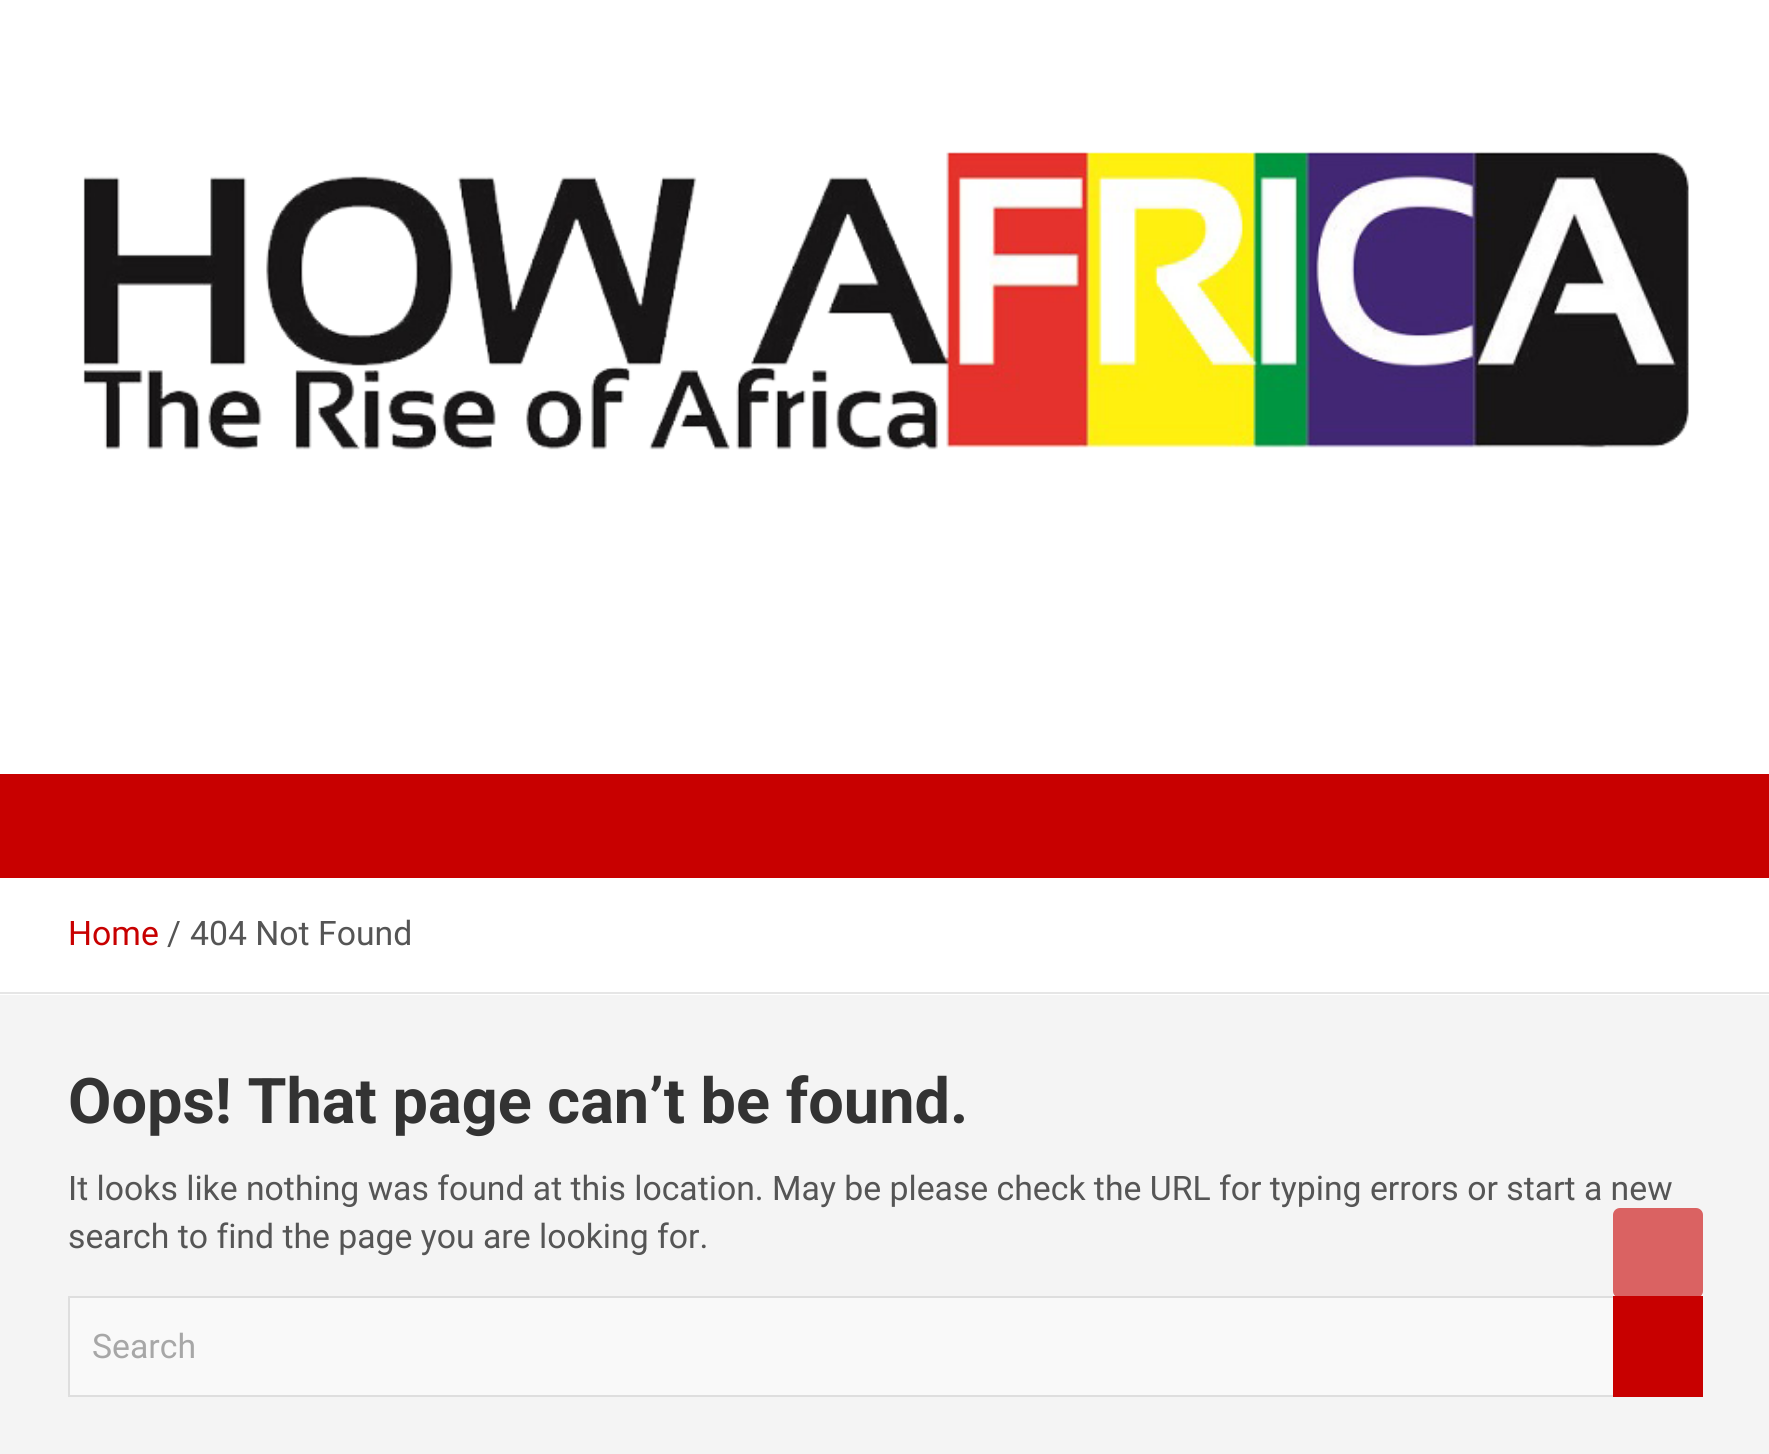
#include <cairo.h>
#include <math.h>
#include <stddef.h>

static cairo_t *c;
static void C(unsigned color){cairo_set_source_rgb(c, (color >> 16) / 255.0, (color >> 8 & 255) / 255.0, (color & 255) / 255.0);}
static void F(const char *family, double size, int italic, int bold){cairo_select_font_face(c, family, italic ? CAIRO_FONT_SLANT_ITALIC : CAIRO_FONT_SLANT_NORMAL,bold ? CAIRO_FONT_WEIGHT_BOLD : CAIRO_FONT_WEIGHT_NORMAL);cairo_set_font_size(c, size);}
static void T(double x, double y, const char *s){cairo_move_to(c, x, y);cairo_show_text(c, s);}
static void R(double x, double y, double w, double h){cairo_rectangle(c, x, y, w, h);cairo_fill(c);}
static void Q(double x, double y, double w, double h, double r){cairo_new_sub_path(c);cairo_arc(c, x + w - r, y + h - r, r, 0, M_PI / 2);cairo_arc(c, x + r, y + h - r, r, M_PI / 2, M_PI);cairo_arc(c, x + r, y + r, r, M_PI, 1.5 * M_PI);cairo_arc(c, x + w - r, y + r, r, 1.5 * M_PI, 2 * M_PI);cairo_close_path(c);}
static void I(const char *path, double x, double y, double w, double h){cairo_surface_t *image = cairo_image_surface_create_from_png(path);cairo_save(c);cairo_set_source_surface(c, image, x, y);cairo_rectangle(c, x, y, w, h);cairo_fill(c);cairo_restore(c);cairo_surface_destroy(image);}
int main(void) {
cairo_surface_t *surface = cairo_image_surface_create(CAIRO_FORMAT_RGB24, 1769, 1454);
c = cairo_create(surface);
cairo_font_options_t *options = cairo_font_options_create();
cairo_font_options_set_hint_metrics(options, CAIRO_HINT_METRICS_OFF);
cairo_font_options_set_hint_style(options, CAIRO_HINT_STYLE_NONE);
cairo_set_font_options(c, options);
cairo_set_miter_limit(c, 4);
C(0xf4f4f4);
cairo_paint(c);
C(0xffffff);
R(0,0,1769,774);
I("1.png",83,151,1606,299);
C(0xc80000);
R(0,774,1769,104);
C(0xffffff);
R(0,878,1769,117);
C(0xe6e6e6);
R(0,992,1769,2);
F("Roboto",33.75,0,0);
C(0xc80000);
T(68,945,"Home");
C(0x555555);
T(167,945,"/");
T(190,945,"404 Not Found");
F("Roboto",63,0,1);
C(0x333333);
T(68,1123,"Oops! That page can’t be found.");
F("Roboto",33.75,0,0);
C(0x555555);
T(68,1200,"It looks like nothing was found at this location. May be please check the URL for typing errors or start a new");
T(68,1248,"search to find the page you are looking for.");
C(0xf9f9f9);
R(70,1298,1543,97);
C(0xdedede);
cairo_new_path(c);
cairo_move_to(c,68,1296);
cairo_line_to(c,1613,1296);
cairo_line_to(c,1613,1298);
cairo_line_to(c,70,1298);
cairo_close_path(c);
cairo_fill(c);
cairo_new_path(c);
cairo_move_to(c,1613,1397);
cairo_line_to(c,68,1397);
cairo_line_to(c,70,1395);
cairo_line_to(c,1613,1395);
cairo_close_path(c);
cairo_fill(c);
cairo_set_source_rgba(c,0,0,0,0.09);
cairo_new_path(c);
cairo_move_to(c,68,1397);
cairo_line_to(c,68,1296);
cairo_line_to(c,70,1298);
cairo_line_to(c,70,1395);
cairo_close_path(c);
cairo_fill(c);
C(0xa7a7a7);
T(92,1358,"Search");
C(0xc80000);
R(1613,1296,90,101);
cairo_set_source_rgba(c,0.784,0,0,0.6);
Q(1613,1208,90,90,7);
cairo_fill(c);
cairo_surface_write_to_png(surface, "o.png");
cairo_font_options_destroy(options);
cairo_destroy(c);
cairo_surface_destroy(surface);
return 0;
}
